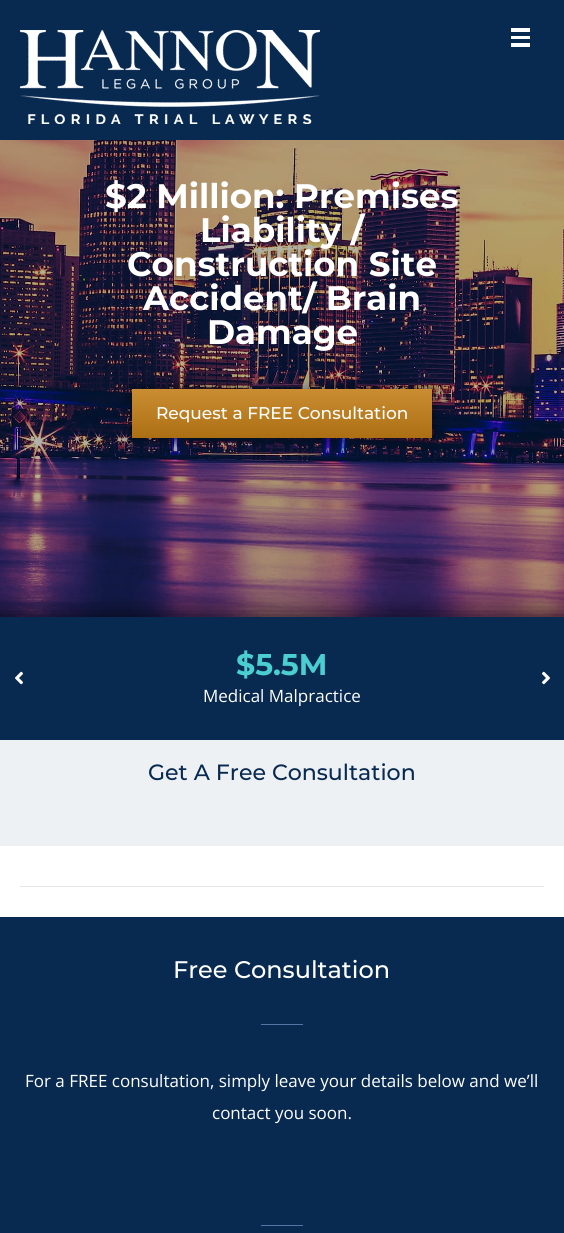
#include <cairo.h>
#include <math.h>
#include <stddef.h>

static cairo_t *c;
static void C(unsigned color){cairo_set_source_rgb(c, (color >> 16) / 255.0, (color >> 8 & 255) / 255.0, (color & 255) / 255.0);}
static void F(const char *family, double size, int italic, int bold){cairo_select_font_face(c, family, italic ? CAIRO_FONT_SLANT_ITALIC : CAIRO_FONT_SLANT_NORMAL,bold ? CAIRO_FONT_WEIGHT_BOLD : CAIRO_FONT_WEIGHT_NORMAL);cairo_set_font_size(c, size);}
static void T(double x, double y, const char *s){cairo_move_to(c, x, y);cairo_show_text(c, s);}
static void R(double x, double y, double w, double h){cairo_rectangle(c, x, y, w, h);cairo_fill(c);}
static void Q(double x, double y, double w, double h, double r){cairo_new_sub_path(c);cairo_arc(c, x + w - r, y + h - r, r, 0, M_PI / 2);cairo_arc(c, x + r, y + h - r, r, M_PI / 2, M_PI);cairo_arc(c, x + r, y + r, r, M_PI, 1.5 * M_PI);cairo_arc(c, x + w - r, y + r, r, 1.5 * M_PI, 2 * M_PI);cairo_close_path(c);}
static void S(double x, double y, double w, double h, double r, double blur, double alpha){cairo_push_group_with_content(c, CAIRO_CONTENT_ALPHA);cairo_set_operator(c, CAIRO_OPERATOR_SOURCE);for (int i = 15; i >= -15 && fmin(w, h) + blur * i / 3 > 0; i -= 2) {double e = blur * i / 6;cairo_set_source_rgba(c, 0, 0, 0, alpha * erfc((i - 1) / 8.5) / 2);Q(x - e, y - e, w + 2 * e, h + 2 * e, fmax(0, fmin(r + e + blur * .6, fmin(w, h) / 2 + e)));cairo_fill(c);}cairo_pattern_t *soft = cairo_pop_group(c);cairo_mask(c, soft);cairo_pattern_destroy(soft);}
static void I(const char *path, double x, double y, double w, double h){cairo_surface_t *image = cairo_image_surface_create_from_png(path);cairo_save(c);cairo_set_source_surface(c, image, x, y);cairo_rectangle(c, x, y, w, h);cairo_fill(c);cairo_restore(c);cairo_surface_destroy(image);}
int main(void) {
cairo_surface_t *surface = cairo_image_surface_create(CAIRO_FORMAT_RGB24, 564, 1233);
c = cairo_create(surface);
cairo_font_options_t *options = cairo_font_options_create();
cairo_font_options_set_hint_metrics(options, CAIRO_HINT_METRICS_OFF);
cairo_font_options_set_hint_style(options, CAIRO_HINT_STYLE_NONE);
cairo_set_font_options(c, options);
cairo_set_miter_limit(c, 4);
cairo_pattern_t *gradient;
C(0xffffff);
cairo_paint(c);
C(0x082a51);
R(0,0,564,140);
I("1.png",20,30,300,94);
C(0xffffff);
R(511,28,19,4);
R(511,36,19,3);
R(511,43,19,4);
I("2.png",0,140,564,477);
F("Montserrat",34,0,1);
T(105,208,"$2 Million: Premises");
T(200,242,"Liability /");
T(127,276,"Construction Site");
T(143,310,"Accident/ Brain");
T(207,344,"Damage");
C(0x000000);
S(132,389,300,49,0,7.5,.5);
gradient = cairo_pattern_create_linear(282,389,282,438);
cairo_pattern_add_color_stop_rgba(gradient,0,0.792,0.553,0.192,1);
cairo_pattern_add_color_stop_rgba(gradient,1,0.675,0.435,0.075,1);
cairo_set_source(c,gradient);
cairo_pattern_destroy(gradient);
R(132,389,300,49);
F("Montserrat Medium",17,0,0);
C(0xffffff);
T(156,419,"Request a FREE Consultation");
C(0x000000);
S(-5,612,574,133,0,12.5,.56);
C(0x082a51);
R(0,617,564,123);
I("3.png",15,671,8,14);
F("Montserrat",30,0,1);
C(0x4bced0);
T(236,675,"$5.5M");
F("Open Sans",17,0,0);
C(0xffffff);
T(203,702,"Medical Malpractice");
I("4.png",542,671,8,14);
C(0xedf1f4);
R(0,740,564,106);
F("Montserrat Medium",22.1,0,0);
C(0x082a51);
T(148,780,"Get A Free Consultation");
C(0xe6e6e6);
R(20,886,524,1);
C(0x082a51);
R(0,917,564,316);
F("Montserrat Medium",24,0,0);
C(0xffffff);
T(173,978,"Free Consultation");
C(0x5674a6);
R(261,1024,42,1);
F("Open Sans",17,0,0);
C(0xffffff);
T(25,1087,"For a FREE consultation, simply leave your details below and we’ll");
T(212,1119,"contact you soon.");
C(0x5674a6);
R(261,1225,42,1);
cairo_surface_write_to_png(surface, "o.png");
cairo_font_options_destroy(options);
cairo_destroy(c);
cairo_surface_destroy(surface);
return 0;
}
